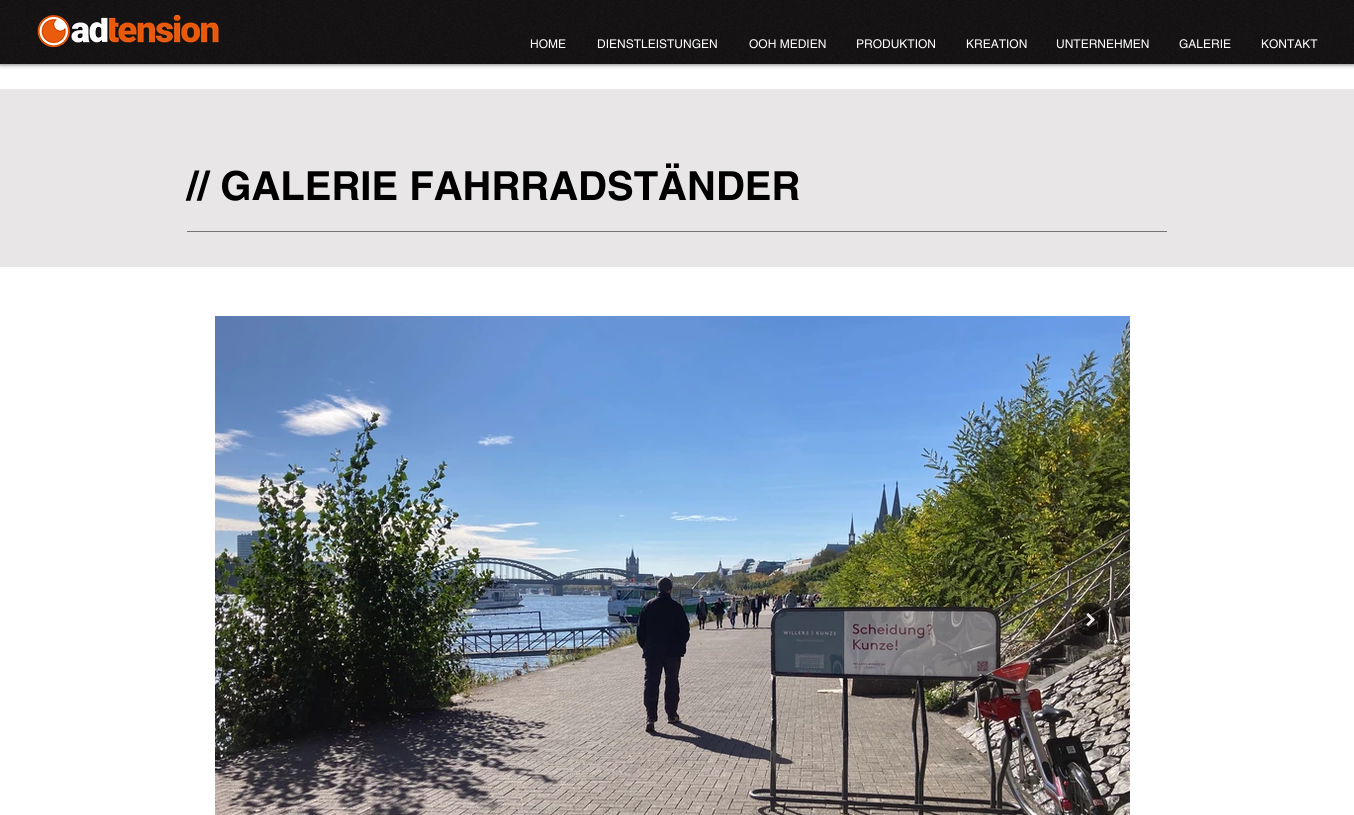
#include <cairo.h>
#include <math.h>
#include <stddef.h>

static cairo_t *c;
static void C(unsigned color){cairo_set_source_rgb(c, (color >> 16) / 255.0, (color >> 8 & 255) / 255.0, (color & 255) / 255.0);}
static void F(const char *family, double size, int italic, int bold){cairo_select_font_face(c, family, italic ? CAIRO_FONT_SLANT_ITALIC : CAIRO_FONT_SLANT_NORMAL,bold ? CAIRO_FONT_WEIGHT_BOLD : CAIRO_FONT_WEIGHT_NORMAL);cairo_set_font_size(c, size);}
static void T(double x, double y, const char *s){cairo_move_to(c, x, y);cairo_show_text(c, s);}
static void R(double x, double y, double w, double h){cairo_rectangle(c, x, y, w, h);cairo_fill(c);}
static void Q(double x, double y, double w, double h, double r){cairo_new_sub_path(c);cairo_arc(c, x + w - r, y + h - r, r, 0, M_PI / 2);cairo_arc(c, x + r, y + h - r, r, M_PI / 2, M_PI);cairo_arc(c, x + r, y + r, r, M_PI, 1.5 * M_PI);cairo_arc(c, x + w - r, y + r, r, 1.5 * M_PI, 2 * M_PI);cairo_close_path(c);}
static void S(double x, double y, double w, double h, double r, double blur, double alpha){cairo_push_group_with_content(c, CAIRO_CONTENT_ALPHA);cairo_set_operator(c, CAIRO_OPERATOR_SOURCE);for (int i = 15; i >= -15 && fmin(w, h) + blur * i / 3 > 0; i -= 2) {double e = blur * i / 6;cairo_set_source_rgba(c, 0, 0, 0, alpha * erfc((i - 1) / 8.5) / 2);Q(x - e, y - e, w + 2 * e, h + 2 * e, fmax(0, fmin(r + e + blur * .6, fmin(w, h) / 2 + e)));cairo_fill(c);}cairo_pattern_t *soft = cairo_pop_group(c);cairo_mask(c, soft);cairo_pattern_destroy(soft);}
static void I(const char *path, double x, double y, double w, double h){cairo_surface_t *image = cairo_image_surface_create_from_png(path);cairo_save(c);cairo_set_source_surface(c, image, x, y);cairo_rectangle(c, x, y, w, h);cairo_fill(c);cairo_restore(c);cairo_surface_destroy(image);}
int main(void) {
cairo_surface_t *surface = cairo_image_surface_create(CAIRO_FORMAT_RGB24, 1354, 815);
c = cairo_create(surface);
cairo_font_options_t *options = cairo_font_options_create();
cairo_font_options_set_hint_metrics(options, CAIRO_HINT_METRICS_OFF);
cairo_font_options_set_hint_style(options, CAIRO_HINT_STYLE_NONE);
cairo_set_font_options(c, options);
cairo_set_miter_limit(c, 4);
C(0xffffff);
cairo_paint(c);
C(0x000000);
S(0,0,1354,64,0,2.5,.7);
C(0x131111);
R(0,0,1354,64);
I("1.png",0,0,1354,64);
I("2.png",37,14,182,34);
F("helvetica",12,0,0);
C(0xffffff);
T(530,48,"HOME");
T(597,48,"DIENSTLEISTUNGEN");
T(749,48,"OOH MEDIEN");
T(856,48,"PRODUKTION");
T(966,48,"KREATION");
T(1056,48,"UNTERNEHMEN");
T(1179,48,"GALERIE");
T(1261,48,"KONTAKT");
C(0xe8e6e6);
R(0,89,1354,178);
F("helvetica",40,0,1);
C(0x000000);
T(187,200,"// GALERIE FAHRRADSTÄNDER");
C(0x757575);
R(187,231,980,1);
I("3.png",215,316,915,499);
cairo_set_source_rgba(c,0,0,0,0.54);
cairo_arc(c,1090.5,619.5,16.5,0,2 * M_PI);
cairo_fill(c);
I("4.png",1086,613,9,13);
cairo_surface_write_to_png(surface, "o.png");
cairo_font_options_destroy(options);
cairo_destroy(c);
cairo_surface_destroy(surface);
return 0;
}
